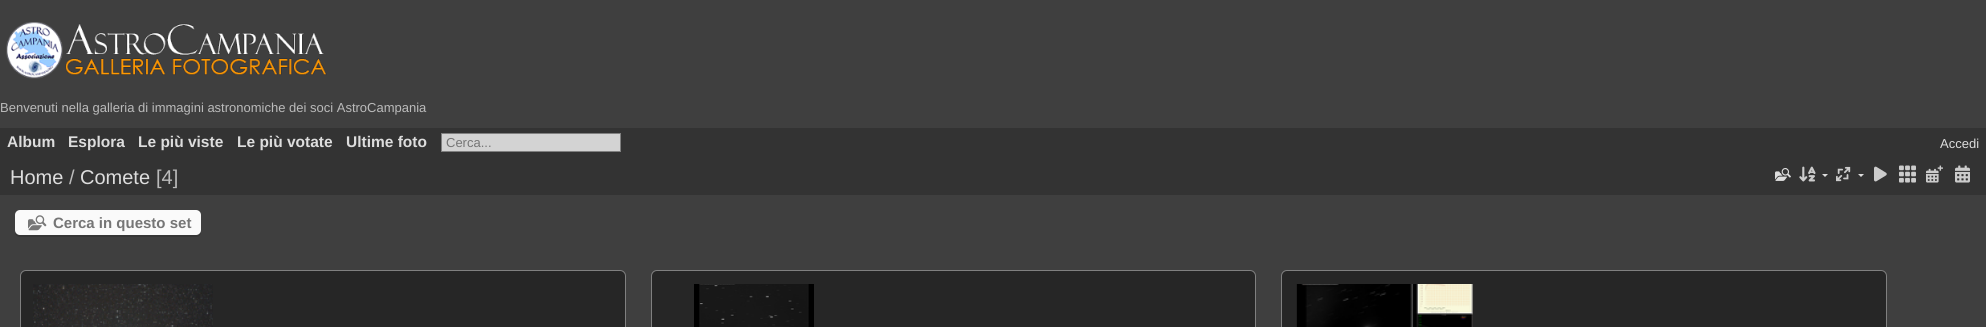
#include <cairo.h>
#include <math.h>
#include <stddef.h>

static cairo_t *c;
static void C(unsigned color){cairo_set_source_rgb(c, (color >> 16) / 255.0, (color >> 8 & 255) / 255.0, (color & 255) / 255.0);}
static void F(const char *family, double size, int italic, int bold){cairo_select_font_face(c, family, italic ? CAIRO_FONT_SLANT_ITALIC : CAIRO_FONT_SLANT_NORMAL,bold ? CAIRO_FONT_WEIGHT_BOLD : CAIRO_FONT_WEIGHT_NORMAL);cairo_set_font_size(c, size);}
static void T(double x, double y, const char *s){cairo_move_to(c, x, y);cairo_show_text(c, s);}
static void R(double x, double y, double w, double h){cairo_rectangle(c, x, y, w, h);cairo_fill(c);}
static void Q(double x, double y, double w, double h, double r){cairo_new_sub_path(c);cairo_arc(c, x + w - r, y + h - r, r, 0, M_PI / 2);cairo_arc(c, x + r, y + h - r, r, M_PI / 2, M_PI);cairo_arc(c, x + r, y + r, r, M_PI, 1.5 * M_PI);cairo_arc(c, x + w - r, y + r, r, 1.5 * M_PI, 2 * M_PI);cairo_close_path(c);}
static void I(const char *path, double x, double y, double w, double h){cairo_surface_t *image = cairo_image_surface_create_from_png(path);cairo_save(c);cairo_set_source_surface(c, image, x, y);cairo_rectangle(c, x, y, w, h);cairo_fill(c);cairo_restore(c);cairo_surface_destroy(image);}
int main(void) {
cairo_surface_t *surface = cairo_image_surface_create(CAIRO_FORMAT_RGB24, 1986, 327);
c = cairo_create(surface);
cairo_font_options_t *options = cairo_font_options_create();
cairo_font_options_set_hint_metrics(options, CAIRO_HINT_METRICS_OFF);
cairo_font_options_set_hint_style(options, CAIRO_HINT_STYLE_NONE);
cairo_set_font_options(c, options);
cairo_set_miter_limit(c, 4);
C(0x3f3f3f);
cairo_paint(c);
I("1.png",6,22,321,57);
F("Liberation Sans",13,0,0);
C(0xbbbbbb);
T(0,112,"Benvenuti nella galleria di immagini astronomiche dei soci AstroCampania");
C(0x333333);
R(0,128,1986,67);
F("Liberation Sans",15.5,0,1);
C(0xdddddd);
T(7,147,"Album");
T(68,147,"Esplora");
T(138,147,"Le più viste");
T(237,147,"Le più votate");
T(346,147,"Ultime foto");
C(0xd3d3d3);
cairo_rectangle(c,441.5,133.5,179,18);
cairo_fill_preserve(c);
C(0x808080);
cairo_set_line_width(c,1);
cairo_stroke(c);
F("Liberation Sans",13,0,0);
C(0x757575);
T(446,147,"Cerca...");
C(0xdddddd);
T(1940,148,"Accedi");
F("Liberation Sans",20,0,0);
T(10,184,"Home");
C(0xbbbbbb);
T(69,184,"/");
C(0xdddddd);
T(80,184,"Comete");
C(0xbbbbbb);
T(156,184,"[4]");
I("2.png",1799,166,17,16);
C(0xdddddd);
cairo_new_path(c);
cairo_move_to(c,1822,174);
cairo_line_to(c,1828,174);
cairo_line_to(c,1825,177);
cairo_close_path(c);
cairo_move_to(c,1858,174);
cairo_line_to(c,1864,174);
cairo_line_to(c,1861,177);
cairo_close_path(c);
cairo_fill(c);
I("3.png",1899,165,17,18);
I("4.png",1926,165,17,18);
I("5.png",1955,165,15,18);
I("6.png",1775,168,16,13);
I("7.png",1836,166,15,16);
I("8.png",1874,166,13,16);
C(0x363636);
cairo_new_path(c);
cairo_move_to(c,15,230);
cairo_line_to(c,15,232);
cairo_curve_to(c,15,235,17,237,20,237);
cairo_line_to(c,196,237);
cairo_curve_to(c,199,237,201,235,201,232);
cairo_line_to(c,201,230);
cairo_curve_to(c,201,233,199,235,196,235);
cairo_line_to(c,20,235);
cairo_curve_to(c,17,235,15,233,15,230);
cairo_close_path(c);
cairo_fill(c);
C(0xfafafa);
Q(15,210,186,25,5);
cairo_fill(c);
I("9.png",28,215,19,16);
F("Liberation Sans",15,0,1);
C(0x757575);
T(53,228,"Cerca in questo set");
C(0x262626);
Q(20.5,270.5,605,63,5.5);
cairo_fill_preserve(c);
C(0x808080);
cairo_stroke(c);
I("10.png",33,284,180,43);
C(0x262626);
Q(651.5,270.5,604,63,5.5);
cairo_fill_preserve(c);
C(0x808080);
cairo_stroke(c);
I("11.png",694,284,120,43);
C(0x262626);
Q(1281.5,270.5,605,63,5.5);
cairo_fill_preserve(c);
C(0x808080);
cairo_stroke(c);
I("12.png",1296,284,177,43);
cairo_surface_write_to_png(surface, "o.png");
cairo_font_options_destroy(options);
cairo_destroy(c);
cairo_surface_destroy(surface);
return 0;
}
